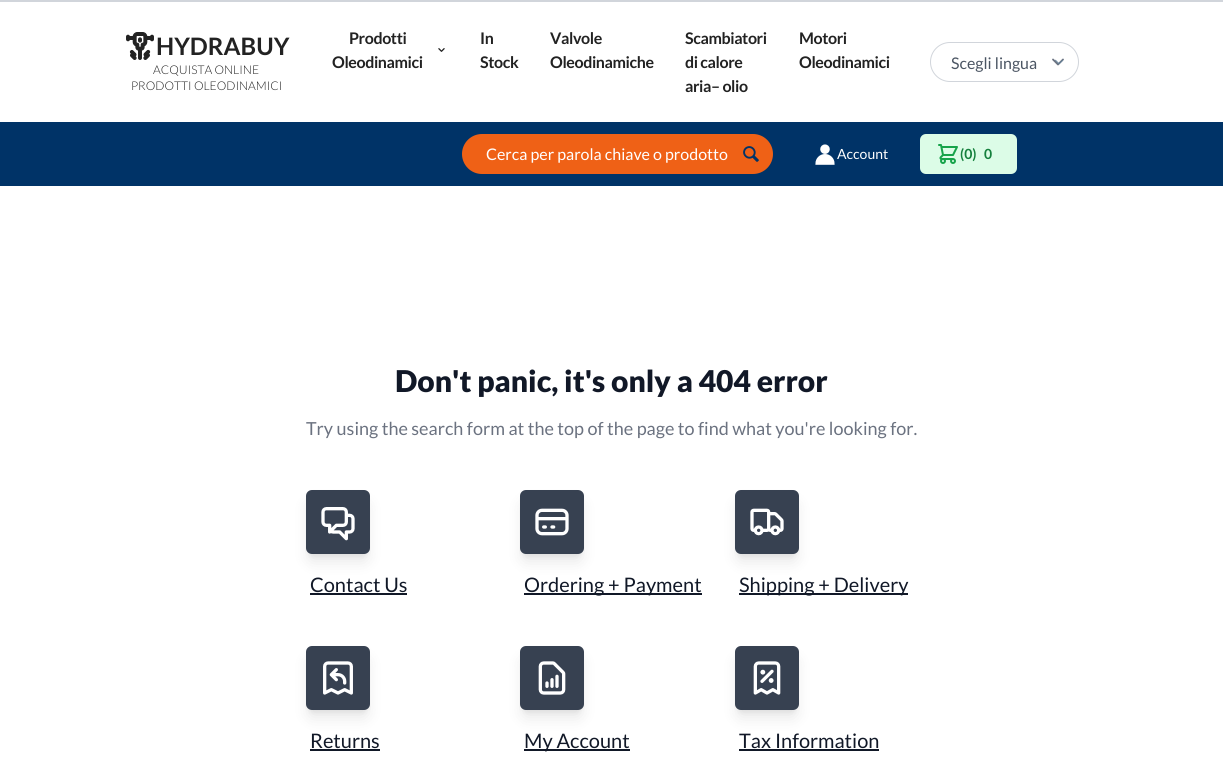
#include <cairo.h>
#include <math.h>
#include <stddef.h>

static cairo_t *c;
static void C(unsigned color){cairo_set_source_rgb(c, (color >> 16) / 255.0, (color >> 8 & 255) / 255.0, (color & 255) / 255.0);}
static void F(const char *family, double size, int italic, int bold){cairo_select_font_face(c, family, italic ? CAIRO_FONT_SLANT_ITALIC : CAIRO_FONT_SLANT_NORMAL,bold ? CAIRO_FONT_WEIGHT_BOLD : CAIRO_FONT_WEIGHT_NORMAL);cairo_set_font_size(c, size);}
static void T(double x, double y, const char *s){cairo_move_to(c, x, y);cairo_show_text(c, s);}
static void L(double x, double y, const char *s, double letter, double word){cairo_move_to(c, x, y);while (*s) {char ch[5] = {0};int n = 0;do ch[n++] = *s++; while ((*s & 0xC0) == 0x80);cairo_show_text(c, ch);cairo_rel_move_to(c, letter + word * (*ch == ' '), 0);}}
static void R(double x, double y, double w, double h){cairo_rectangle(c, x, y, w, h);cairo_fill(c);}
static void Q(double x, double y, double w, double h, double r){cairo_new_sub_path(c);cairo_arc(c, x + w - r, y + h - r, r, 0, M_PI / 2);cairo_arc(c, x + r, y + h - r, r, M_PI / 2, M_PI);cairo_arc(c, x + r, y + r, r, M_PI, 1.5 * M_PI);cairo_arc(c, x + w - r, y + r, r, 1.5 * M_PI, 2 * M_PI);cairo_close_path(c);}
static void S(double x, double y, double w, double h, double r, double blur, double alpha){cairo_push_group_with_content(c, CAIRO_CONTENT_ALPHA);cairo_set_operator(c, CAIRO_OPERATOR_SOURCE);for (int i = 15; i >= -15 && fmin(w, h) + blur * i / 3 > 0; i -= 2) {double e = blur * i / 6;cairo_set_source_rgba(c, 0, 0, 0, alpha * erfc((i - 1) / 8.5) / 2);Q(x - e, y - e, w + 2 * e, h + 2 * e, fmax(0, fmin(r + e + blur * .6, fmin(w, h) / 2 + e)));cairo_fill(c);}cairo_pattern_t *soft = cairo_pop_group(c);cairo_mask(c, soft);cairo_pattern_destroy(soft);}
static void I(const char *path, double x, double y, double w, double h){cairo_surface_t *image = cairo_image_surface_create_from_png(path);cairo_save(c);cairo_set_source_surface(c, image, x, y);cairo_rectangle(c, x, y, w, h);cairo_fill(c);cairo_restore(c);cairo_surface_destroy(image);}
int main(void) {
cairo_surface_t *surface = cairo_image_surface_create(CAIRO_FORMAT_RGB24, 1223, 766);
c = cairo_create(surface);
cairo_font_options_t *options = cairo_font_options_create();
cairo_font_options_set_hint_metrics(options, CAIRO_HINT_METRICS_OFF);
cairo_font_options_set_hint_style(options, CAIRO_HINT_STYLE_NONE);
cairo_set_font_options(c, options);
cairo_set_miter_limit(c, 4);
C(0xffffff);
cairo_paint(c);
C(0xd1d5db);
R(0,0,1223,2);
I("1.png",126,32,28,28);
F("Lato",24,0,1);
C(0x222222);
T(156,55,"HYDRABUY");
F("Lato Light",12,0,0);
T(153,74,"ACQUISTA ONLINE");
T(131,90,"PRODOTTI OLEODINAMICI");
F("Lato",16,0,1);
L(349,44,"Prodotti",-.4,0);
L(332,68,"Oleodinamici",-.4,0);
I("2.png",438,48,7,4);
L(480,44,"In",-.4,0);
L(480,68,"Stock",-.4,0);
L(550,44,"Valvole",-.4,0);
L(550,68,"Oleodinamiche",-.4,0);
L(685,44,"Scambiatori",-.4,0);
L(685,68,"di calore",-.4,0);
L(685,92,"aria– olio",-.4,0);
L(799,44,"Motori",-.4,0);
L(799,68,"Oleodinamici",-.4,0);
cairo_new_path(c);
cairo_move_to(c,1053,59.5);
cairo_line_to(c,1058,64.5);
cairo_line_to(c,1063,59.5);
C(0x6b7280);
cairo_set_line_width(c,1.8);
cairo_set_line_cap(c,CAIRO_LINE_CAP_ROUND);
cairo_set_line_join(c,CAIRO_LINE_JOIN_ROUND);
cairo_stroke(c);
Q(930.5,42.5,148,39,19.5);
C(0xd1d5db);
cairo_set_line_width(c,1);
cairo_set_line_cap(c,CAIRO_LINE_CAP_BUTT);
cairo_set_line_join(c,CAIRO_LINE_JOIN_MITER);
cairo_stroke(c);
F("Lato",16,0,0);
C(0x4b5563);
T(951,69,"Scegli lingua");
I("3.png",1055,59,8,6);
C(0x003367);
R(0,122,1223,64);
C(0xef6116);
Q(462,134,311,40,20);
cairo_fill(c);
C(0xffffff);
T(486,160,"Cerca per parola chiave o prodotto");
I("4.png",743,146,16,16);
I("5.png",815,144,20,21);
F("Lato",14,0,0);
T(837,159,"Account");
C(0xdcfce7);
Q(920,134,97,40,6);
cairo_fill(c);
I("6.png",938,144,20,20);
F("Lato",14,0,1);
C(0x15803d);
T(960,159,"(0)");
T(984,159,"0");
F("Lato Black",30,0,0);
C(0x111827);
T(395,392,"Don't panic, it's only a 404 error");
F("Lato",18,0,0);
C(0x6b7280);
T(306,435,"Try using the search form at the top of the page to find what you're looking for.");
C(0x000000);
S(310,498,56,56,2,3,.1);
S(309,503,58,58,3,7.5,.1);
C(0x374151);
Q(306,490,64,64,6);
cairo_fill(c);
I("7.png",321,507,34,34);
F("Lato",20,0,0);
C(0x111827);
T(310,592,"Contact Us");
R(310,593,97,2);
C(0x000000);
S(524,498,56,56,2,3,.1);
S(523,503,58,58,3,7.5,.1);
C(0x374151);
Q(520,490,64,64,6);
cairo_fill(c);
I("8.png",535,508,34,28);
C(0x111827);
R(524,593,178,2);
T(524,592,"Ordering + Payment");
C(0x000000);
S(739,498,56,56,2,3,.1);
S(738,503,58,58,3,7.5,.1);
C(0x374151);
Q(735,490,64,64,6);
cairo_fill(c);
I("9.png",750,508,34,28);
C(0x111827);
R(739,593,169,2);
T(739,592,"Shipping + Delivery");
C(0x000000);
S(310,654,56,56,2,3,.1);
S(309,659,58,58,3,7.5,.1);
C(0x374151);
Q(306,646,64,64,6);
cairo_fill(c);
I("10.png",323,661,30,34);
C(0x111827);
T(310,748,"Returns");
R(310,749,70,2);
C(0x000000);
S(524,654,56,56,2,3,.1);
S(523,659,58,58,3,7.5,.1);
C(0x374151);
Q(520,646,64,64,6);
cairo_fill(c);
I("11.png",538,661,28,34);
C(0x111827);
R(524,749,106,2);
T(524,748,"My Account");
C(0x000000);
S(739,654,56,56,2,3,.1);
S(738,659,58,58,3,7.5,.1);
C(0x374151);
Q(735,646,64,64,6);
cairo_fill(c);
I("12.png",753,661,28,34);
C(0x111827);
T(739,748,"Tax Information");
R(739,749,140,2);
cairo_surface_write_to_png(surface, "o.png");
cairo_font_options_destroy(options);
cairo_destroy(c);
cairo_surface_destroy(surface);
return 0;
}
